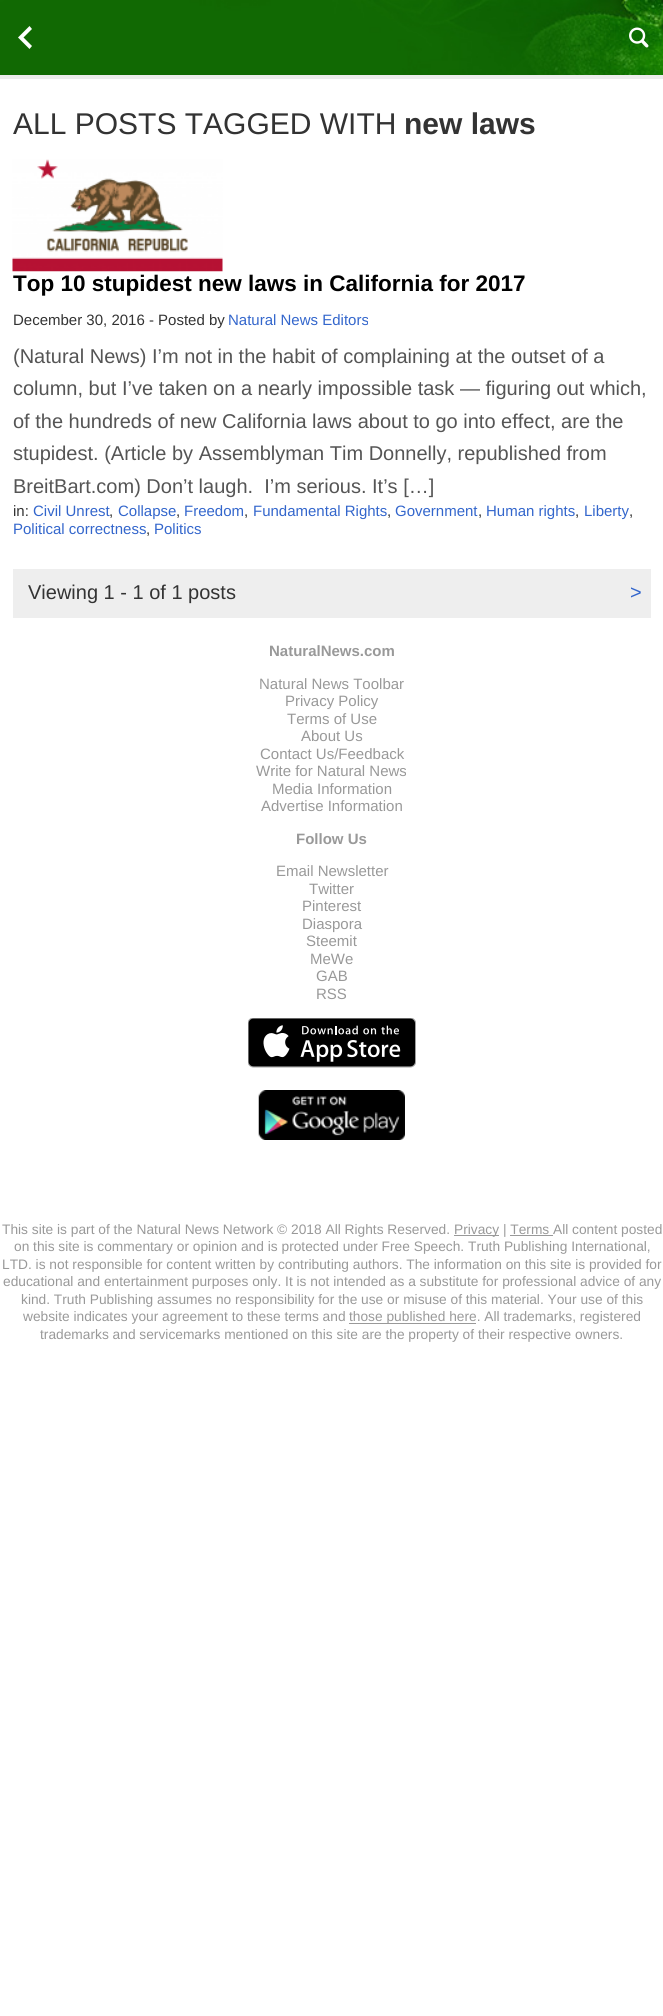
#include <cairo.h>
#include <math.h>
#include <stddef.h>

static cairo_t *c;
static void C(unsigned color){cairo_set_source_rgb(c, (color >> 16) / 255.0, (color >> 8 & 255) / 255.0, (color & 255) / 255.0);}
static void F(const char *family, double size, int italic, int bold){cairo_select_font_face(c, family, italic ? CAIRO_FONT_SLANT_ITALIC : CAIRO_FONT_SLANT_NORMAL,bold ? CAIRO_FONT_WEIGHT_BOLD : CAIRO_FONT_WEIGHT_NORMAL);cairo_set_font_size(c, size);}
static void T(double x, double y, const char *s){cairo_move_to(c, x, y);cairo_show_text(c, s);}
static void R(double x, double y, double w, double h){cairo_rectangle(c, x, y, w, h);cairo_fill(c);}
static void I(const char *path, double x, double y, double w, double h){cairo_surface_t *image = cairo_image_surface_create_from_png(path);cairo_save(c);cairo_set_source_surface(c, image, x, y);cairo_rectangle(c, x, y, w, h);cairo_fill(c);cairo_restore(c);cairo_surface_destroy(image);}
int main(void) {
cairo_surface_t *surface = cairo_image_surface_create(CAIRO_FORMAT_RGB24, 663, 2016);
c = cairo_create(surface);
cairo_font_options_t *options = cairo_font_options_create();
cairo_font_options_set_hint_metrics(options, CAIRO_HINT_METRICS_OFF);
cairo_font_options_set_hint_style(options, CAIRO_HINT_STYLE_NONE);
cairo_set_font_options(c, options);
cairo_set_miter_limit(c, 4);
C(0xffffff);
cairo_paint(c);
I("1.png",0,0,663,75);
C(0xececec);
R(0,75,663,4);
C(0xffffff);
cairo_new_path(c);
cairo_move_to(c,23.5,37.5);
cairo_line_to(c,32,29);
cairo_line_to(c,29.5,26);
cairo_line_to(c,18,37.5);
cairo_line_to(c,29.5,49);
cairo_line_to(c,32,46);
cairo_close_path(c);
cairo_fill(c);
I("2.png",629,27,20,21);
F("Liberation Sans",30,0,0);
C(0x333333);
T(13,134,"ALL POSTS TAGGED WITH");
F("Liberation Sans",30,0,1);
T(404,134,"new laws");
I("3.png",12,159,211,113);
F("Liberation Sans",22.5,0,1);
C(0x000000);
T(13,291,"Top 10 stupidest new laws in California for 2017");
F("Liberation Sans",15,0,0);
C(0x333333);
T(13,325,"December 30, 2016 - Posted by");
C(0x3366cc);
T(228,325,"Natural News Editors");
F("Liberation Sans",20,0,0);
C(0x555555);
T(13,363,"(Natural News) I’m not in the habit of complaining at the outset of a");
T(13,395,"column, but I’ve taken on a nearly impossible task — figuring out which,");
T(13,428,"of the hundreds of new California laws about to go into effect, are the");
T(13,460,"stupidest. (Article by Assemblyman Tim Donnelly, republished from");
T(13,493,"BreitBart.com) Don’t laugh.  I’m serious. It’s […]");
F("Liberation Sans",15,0,0);
C(0x333333);
T(13,516,"in:");
C(0x3366cc);
T(33,516,"Civil Unrest");
C(0x333333);
T(109,516,",");
C(0x3366cc);
T(118,516,"Collapse");
C(0x333333);
T(176,516,",");
C(0x3366cc);
T(184,516,"Freedom");
C(0x333333);
T(244,516,",");
C(0x3366cc);
T(253,516,"Fundamental Rights");
C(0x333333);
T(387,516,",");
C(0x3366cc);
T(395,516,"Government");
C(0x333333);
T(478,516,",");
C(0x3366cc);
T(486,516,"Human rights");
C(0x333333);
T(575,516,",");
C(0x3366cc);
T(584,516,"Liberty");
C(0x333333);
T(629,516,",");
C(0x3366cc);
T(13,534,"Political correctness");
C(0x333333);
T(146,534,",");
C(0x3366cc);
T(154,534,"Politics");
C(0xeeeeee);
R(13,569,638,49);
F("Liberation Sans",20,0,0);
C(0x333333);
T(28,599,"Viewing 1 - 1 of 1 posts");
C(0x3366cc);
T(630,599,">");
F("Liberation Sans",15,0,1);
C(0x999999);
T(269,656,"NaturalNews.com");
F("Liberation Sans",15,0,0);
T(259,689,"Natural News Toolbar");
T(285,706,"Privacy Policy");
T(287,724,"Terms of Use");
T(301,741,"About Us");
T(260,759,"Contact Us/Feedback");
T(256,776,"Write for Natural News");
T(272,794,"Media Information");
T(261,811,"Advertise Information");
F("Liberation Sans",15,0,1);
T(296,844,"Follow Us");
F("Liberation Sans",15,0,0);
T(276,876,"Email Newsletter");
T(309,894,"Twitter");
T(302,911,"Pinterest");
T(302,929,"Diaspora");
T(306,946,"Steemit");
T(310,964,"MeWe");
T(316,981,"GAB");
T(316,999,"RSS");
I("4.png",248,1018,168,50);
I("5.png",258,1090,147,50);
F("Liberation Sans",13.75,0,0);
T(2,1234,"This site is part of the Natural News Network © 2018 All Rights Reserved.");
R(454,1235,45,1);
T(454,1234,"Privacy | Terms");
R(510,1235,43,1);
T(553,1234,"All content posted");
T(14,1251,"on this site is commentary or opinion and is protected under Free Speech. Truth Publishing International,");
T(2,1269,"LTD. is not responsible for content written by contributing authors. The information on this site is provided for");
T(3,1286,"educational and entertainment purposes only. It is not intended as a substitute for professional advice of any");
T(21,1304,"kind. Truth Publishing assumes no responsibility for the use or misuse of this material. Your use of this");
T(23,1321,"website indicates your agreement to these terms and");
R(349,1323,127,1);
T(349,1321,"those published here. All trademarks, registered");
T(40,1339,"trademarks and servicemarks mentioned on this site are the property of their respective owners.");
cairo_surface_write_to_png(surface, "o.png");
cairo_font_options_destroy(options);
cairo_destroy(c);
cairo_surface_destroy(surface);
return 0;
}
